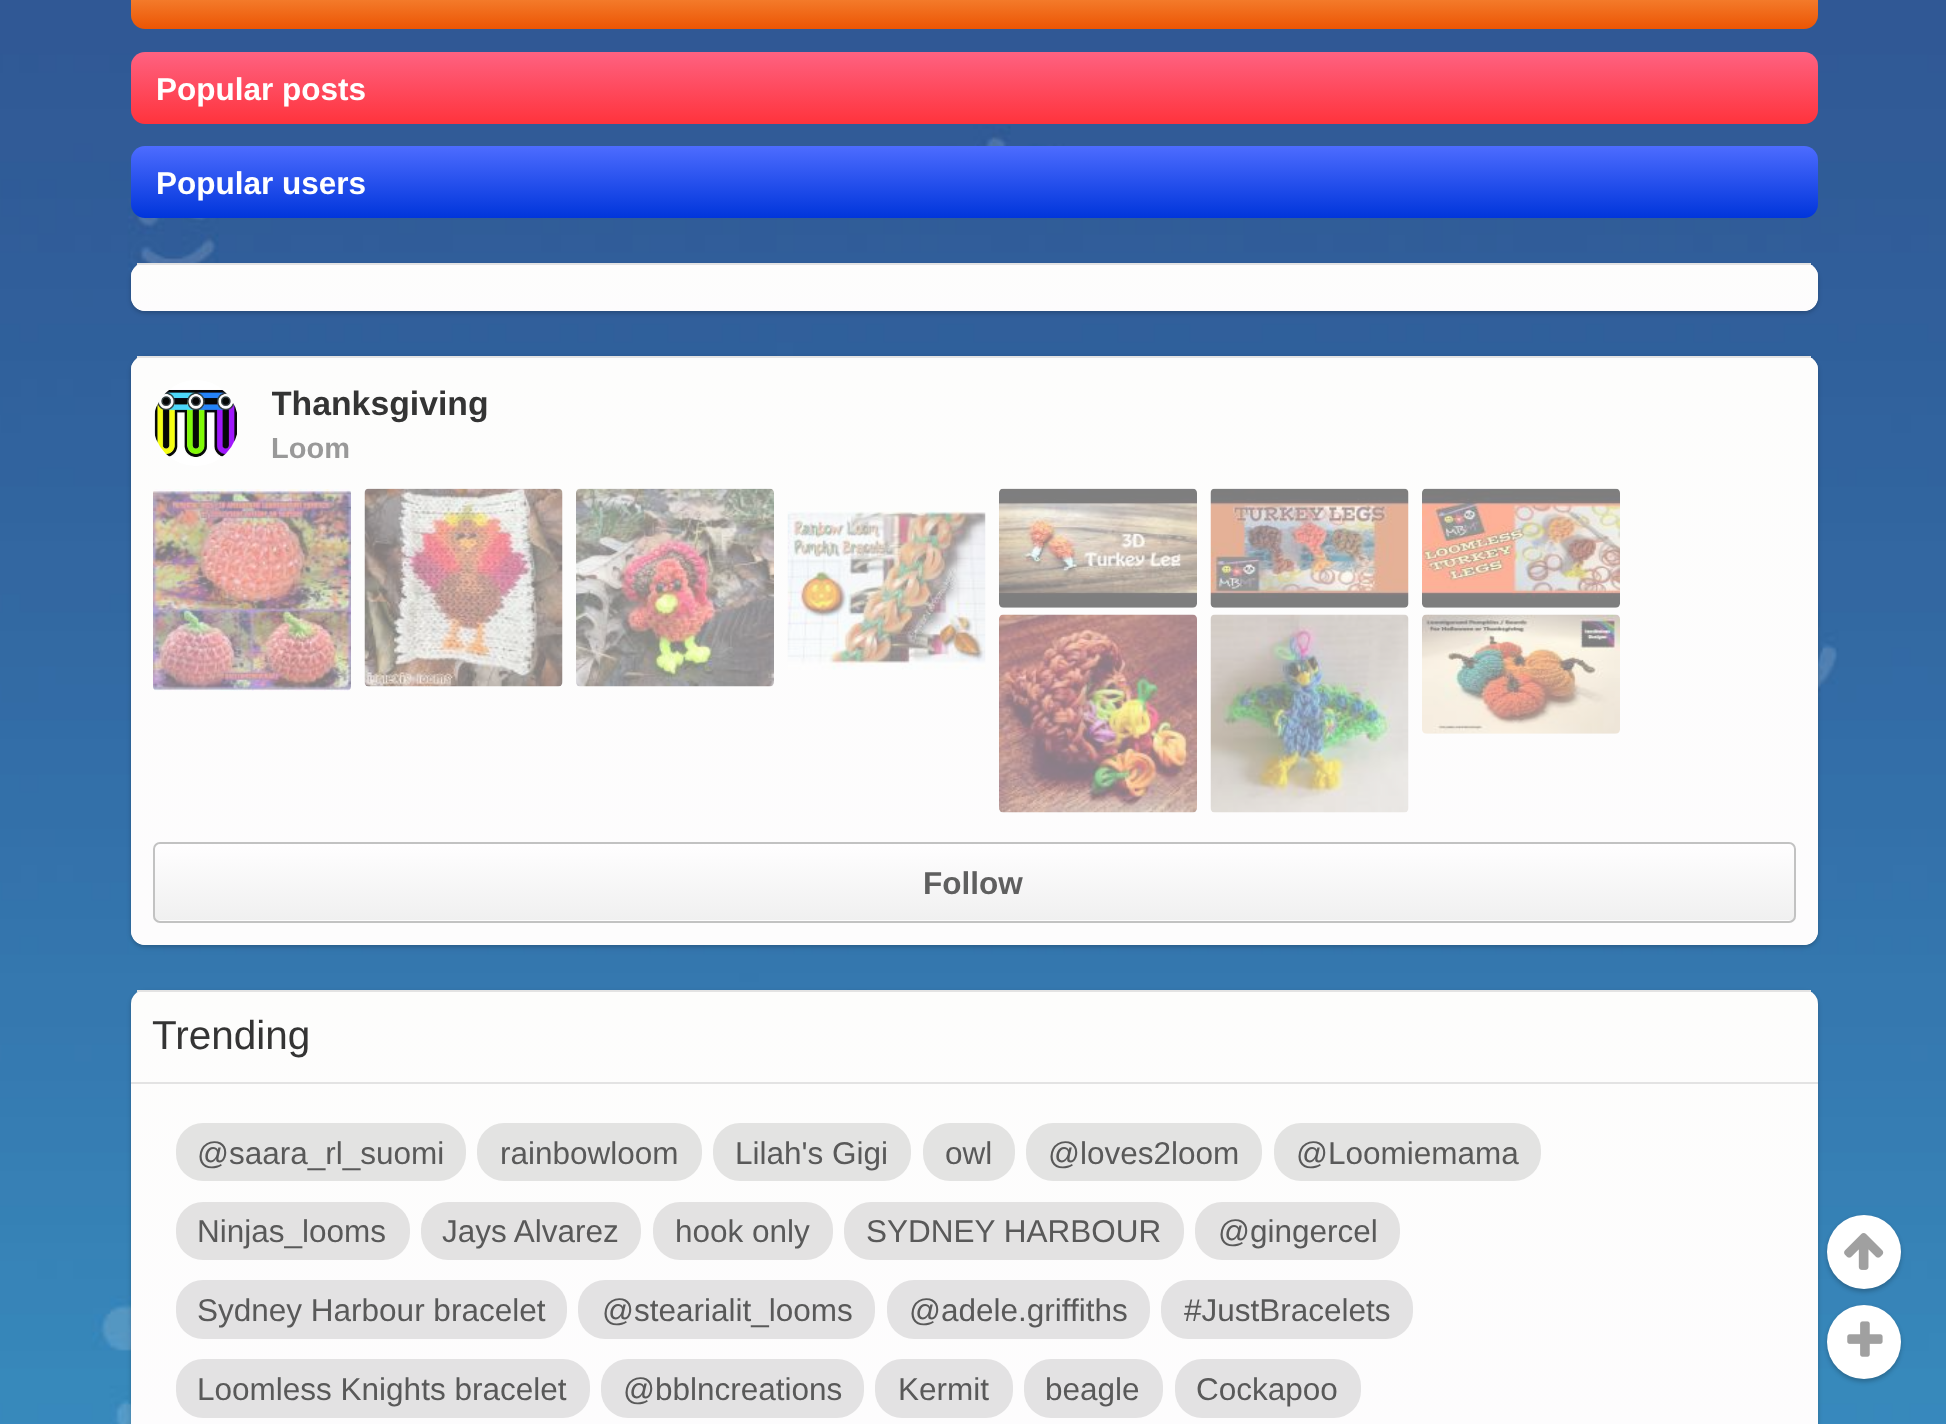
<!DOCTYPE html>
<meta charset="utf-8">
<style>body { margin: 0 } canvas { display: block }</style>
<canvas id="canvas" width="1946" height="1424"></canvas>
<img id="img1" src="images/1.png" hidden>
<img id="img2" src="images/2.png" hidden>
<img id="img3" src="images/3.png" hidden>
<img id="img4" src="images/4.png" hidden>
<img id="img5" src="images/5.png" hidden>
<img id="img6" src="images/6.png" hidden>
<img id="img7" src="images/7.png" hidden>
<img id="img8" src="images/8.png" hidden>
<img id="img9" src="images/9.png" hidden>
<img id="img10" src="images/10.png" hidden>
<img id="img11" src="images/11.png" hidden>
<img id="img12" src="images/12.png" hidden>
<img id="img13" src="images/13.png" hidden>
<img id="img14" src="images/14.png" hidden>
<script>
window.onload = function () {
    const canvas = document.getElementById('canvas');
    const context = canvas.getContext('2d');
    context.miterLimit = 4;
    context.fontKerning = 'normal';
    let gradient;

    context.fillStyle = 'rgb(255, 255, 255)';
    context.fillRect(0, 0, 1946, 1424);
    context.drawImage(document.getElementById('img1'), 0, 0, 1946, 1424);
    gradient = context.createLinearGradient(974, -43, 974, 29);
    gradient.addColorStop(0, 'rgb(254, 177, 98)');
    gradient.addColorStop(1, 'rgb(236, 85, 4)');
    context.fillStyle = gradient;
    context.beginPath();
    context.roundRect(131, -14, 1687, 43, 14);
    context.fill();
    gradient = context.createLinearGradient(974, 52, 974, 124);
    gradient.addColorStop(0, 'rgb(254, 98, 129)');
    gradient.addColorStop(1, 'rgb(255, 51, 60)');
    context.fillStyle = gradient;
    context.beginPath();
    context.roundRect(131, 52, 1687, 72, 14);
    context.fill();
    gradient = context.createLinearGradient(974, 146, 974, 218);
    gradient.addColorStop(0, 'rgb(77, 108, 255)');
    gradient.addColorStop(1, 'rgb(0, 53, 219)');
    context.fillStyle = gradient;
    context.beginPath();
    context.roundRect(131, 146, 1687, 72, 14);
    context.fill();
    context.fillStyle = 'rgba(0, 0, 0, 0.22)';
    context.filter = 'blur(2px)';
    context.beginPath();
    context.roundRect(131, 266, 1687, 47, 14);
    context.fill();
    context.filter = 'none';
    context.fillStyle = 'rgb(253, 252, 253)';
    context.beginPath();
    context.roundRect(131, 263, 1687, 48, 14);
    context.fill();
    context.save();
    context.beginPath();
    context.roundRect(131, 263, 1687, 48, 14);
    context.clip();
    gradient = context.createLinearGradient(974, 220, 974, 266);
    gradient.addColorStop(0, 'rgb(253, 253, 252)');
    gradient.addColorStop(1, 'rgb(253, 252, 253)');
    context.fillStyle = gradient;
    context.fillRect(131, 265, 1687, 1);
    gradient = context.createLinearGradient(974, 265, 974, 311);
    gradient.addColorStop(0, 'rgb(253, 253, 252)');
    gradient.addColorStop(1, 'rgb(253, 252, 253)');
    context.fillStyle = gradient;
    context.beginPath();
    context.roundRect(131, 266, 1687, 45, [0, 0, 14, 14]);
    context.fill();
    context.restore();
    context.fillStyle = 'rgb(227, 227, 227)';
    context.fillRect(137, 263, 1674, 2);
    context.fillStyle = 'rgba(0, 0, 0, 0.22)';
    context.filter = 'blur(2px)';
    context.beginPath();
    context.roundRect(131, 358, 1687, 589, 14);
    context.fill();
    context.filter = 'none';
    context.fillStyle = 'rgb(253, 252, 253)';
    context.beginPath();
    context.roundRect(131, 356, 1687, 589, 14);
    context.fill();
    context.save();
    context.beginPath();
    context.roundRect(131, 356, 1687, 589, 14);
    context.clip();
    gradient = context.createLinearGradient(974, 358, 974, 945);
    gradient.addColorStop(0, 'rgb(253, 253, 252)');
    gradient.addColorStop(1, 'rgb(253, 252, 253)');
    context.fillStyle = gradient;
    context.beginPath();
    context.roundRect(131, 358, 1687, 587, [0, 0, 14, 14]);
    context.fill();
    context.restore();
    context.fillStyle = 'rgb(227, 227, 227)';
    context.fillRect(137, 356, 1674, 2);
    context.fillStyle = 'rgb(255, 255, 255)';
    context.beginPath();
    context.arc(196, 423, 43, 0, 2 * Math.PI);
    context.fill();
    context.drawImage(document.getElementById('img2'), 154, 389, 83, 69);
    context.drawImage(document.getElementById('img3'), 153, 489, 198, 202);
    context.drawImage(document.getElementById('img4'), 364, 488, 199, 199);
    context.drawImage(document.getElementById('img5'), 576, 488, 198, 199);
    context.drawImage(document.getElementById('img6'), 787, 510, 199, 160);
    context.drawImage(document.getElementById('img7'), 999, 488, 198, 120);
    context.drawImage(document.getElementById('img8'), 1210, 488, 199, 120);
    context.drawImage(document.getElementById('img9'), 1422, 488, 198, 120);
    context.drawImage(document.getElementById('img10'), 999, 614, 198, 199);
    context.drawImage(document.getElementById('img11'), 1210, 614, 199, 199);
    context.drawImage(document.getElementById('img12'), 1422, 614, 198, 120);
    gradient = context.createLinearGradient(974, 844, 974, 920);
    gradient.addColorStop(0, 'rgb(255, 254, 255)');
    gradient.addColorStop(1, 'rgb(240, 240, 240)');
    context.fillStyle = gradient;
    context.beginPath();
    context.moveTo(153, 849);
    context.lineTo(153, 916);
    context.bezierCurveTo(153, 917, 153, 919, 154, 920);
    context.lineTo(1795, 920);
    context.bezierCurveTo(1797, 916, 1796, 908, 1796, 905);
    context.lineTo(1796, 848);
    context.lineTo(1794, 844);
    context.lineTo(155, 844);
    context.bezierCurveTo(154, 845, 153, 847, 153, 849);
    context.closePath();
    context.fill();
    context.beginPath();
    context.roundRect(154, 843, 1641, 79, 6);
    context.strokeStyle = 'rgb(194, 194, 194)';
    context.lineWidth = 2;
    context.stroke();
    context.fillStyle = 'rgba(0, 0, 0, 0.22)';
    context.filter = 'blur(2px)';
    context.beginPath();
    context.roundRect(131, 992, 1687, 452, 14);
    context.fill();
    context.filter = 'none';
    context.save();
    context.beginPath();
    context.roundRect(131, 990, 1687, 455, 14);
    context.clip();
    gradient = context.createLinearGradient(974, 992, 974, 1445);
    gradient.addColorStop(0, 'rgb(253, 253, 252)');
    gradient.addColorStop(1, 'rgb(253, 252, 253)');
    context.fillStyle = gradient;
    context.beginPath();
    context.moveTo(131, 992);
    context.lineTo(1818, 992);
    context.lineTo(1818, 1424);
    context.bezierCurveTo(1818, 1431.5, 1811.5, 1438, 1804, 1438);
    context.lineTo(145, 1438);
    context.bezierCurveTo(137.5, 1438, 131, 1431.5, 131, 1424);
    context.closePath();
    context.fill();
    context.restore();
    context.fillStyle = 'rgb(227, 227, 227)';
    context.fillRect(137, 990, 1674, 2);
    context.fillRect(131, 1082, 1687, 2);
    context.fillStyle = 'rgb(227, 227, 226)';
    context.beginPath();
    context.roundRect(176, 1123, 290, 58, 27);
    context.fill();
    context.beginPath();
    context.roundRect(477, 1123, 225, 58, 27);
    context.fill();
    context.beginPath();
    context.roundRect(713, 1123, 198, 58, 27);
    context.fill();
    context.beginPath();
    context.roundRect(923, 1123, 92, 58, 27);
    context.fill();
    context.beginPath();
    context.roundRect(1026, 1123, 236, 58, 27);
    context.fill();
    context.beginPath();
    context.roundRect(1274, 1123, 267, 58, 27);
    context.fill();
    context.fillStyle = 'rgb(227, 226, 226)';
    context.beginPath();
    context.roundRect(176, 1202, 234, 58, 27);
    context.fill();
    context.beginPath();
    context.roundRect(421, 1202, 220, 58, 27);
    context.fill();
    context.beginPath();
    context.roundRect(653, 1202, 180, 58, 27);
    context.fill();
    context.beginPath();
    context.roundRect(844, 1202, 340, 58, 27);
    context.fill();
    context.beginPath();
    context.roundRect(1195, 1202, 205, 58, 27);
    context.fill();
    context.fillStyle = 'rgb(227, 226, 227)';
    context.beginPath();
    context.roundRect(176, 1280, 391, 59, 27);
    context.fill();
    context.beginPath();
    context.roundRect(578, 1280, 297, 59, 27);
    context.fill();
    context.beginPath();
    context.roundRect(887, 1280, 263, 59, 27);
    context.fill();
    context.beginPath();
    context.roundRect(1161, 1280, 252, 59, 27);
    context.fill();
    context.beginPath();
    context.roundRect(176, 1359, 414, 59, 27);
    context.fill();
    context.beginPath();
    context.roundRect(601, 1359, 263, 59, 27);
    context.fill();
    context.beginPath();
    context.roundRect(875, 1359, 138, 59, 27);
    context.fill();
    context.beginPath();
    context.roundRect(1024, 1359, 139, 59, 27);
    context.fill();
    context.beginPath();
    context.roundRect(1175, 1359, 186, 59, 27);
    context.fill();
    context.fillStyle = 'rgba(0, 0, 0, 0.22)';
    context.filter = 'blur(2px)';
    context.beginPath();
    context.roundRect(1827, 1217, 74, 75, 37);
    context.fill();
    context.filter = 'none';
    context.fillStyle = 'rgb(255, 255, 255)';
    context.beginPath();
    context.arc(1864, 1252, 37, 0, 2 * Math.PI);
    context.fill();
    context.drawImage(document.getElementById('img13'), 1844, 1233, 40, 37);
    context.fillStyle = 'rgba(0, 0, 0, 0.22)';
    context.filter = 'blur(2px)';
    context.beginPath();
    context.roundRect(1827, 1307, 74, 75, 37);
    context.fill();
    context.filter = 'none';
    context.fillStyle = 'rgb(255, 255, 255)';
    context.beginPath();
    context.arc(1864, 1342, 37, 0, 2 * Math.PI);
    context.fill();
    context.drawImage(document.getElementById('img14'), 1847, 1321, 36, 36);
    context.font = 'bold 31.5px Liberation Sans';
    context.fillText('Popular posts', 156, 100);
    context.fillText('Popular users', 156, 194);
    context.save();
    context.beginPath();
    context.rect(272, 380, 1530, 43);
    context.clip();
    context.font = 'bold 33.75px Liberation Sans';
    context.fillStyle = 'rgb(52, 52, 52)';
    context.fillText('Thanksgiving', 271, 415);
    context.restore();
    context.font = 'bold 29px Liberation Sans';
    context.fillStyle = 'rgb(153, 153, 153)';
    context.fillText('Loom', 271, 458);
    context.font = 'bold 31.5px Liberation Sans';
    context.fillStyle = 'rgb(95, 95, 95)';
    context.fillText('Follow', 923, 894);
    context.font = '40.5px Liberation Sans';
    context.fillStyle = 'rgb(52, 52, 52)';
    context.fillText('Trending', 152, 1049);
    context.font = '31.5px Liberation Sans';
    context.fillStyle = 'rgb(89, 89, 89)';
    context.fillText('@saara_rl_suomi', 197, 1164);
    context.fillText('rainbowloom', 500, 1164);
    context.fillText('Lilah\'s Gigi', 735, 1164);
    context.fillText('owl', 945, 1164);
    context.fillText('@loves2loom', 1048, 1164);
    context.fillText('@Loomiemama', 1296, 1164);
    context.fillText('Ninjas_looms', 197, 1242);
    context.fillText('Jays Alvarez', 442, 1242);
    context.fillText('hook only', 675, 1242);
    context.fillText('SYDNEY HARBOUR', 866, 1242);
    context.fillText('@gingercel', 1218, 1242);
    context.fillText('Sydney Harbour bracelet', 197, 1321);
    context.fillText('@stearialit_looms', 602, 1321);
    context.fillText('@adele.griffiths', 909, 1321);
    context.fillText('#JustBracelets', 1184, 1321);
    context.fillText('Loomless Knights bracelet', 197, 1400);
    context.fillText('@bblncreations', 623, 1400);
    context.fillText('Kermit', 898, 1400);
    context.fillText('beagle', 1045, 1400);
    context.fillText('Cockapoo', 1196, 1400);
};
</script>
